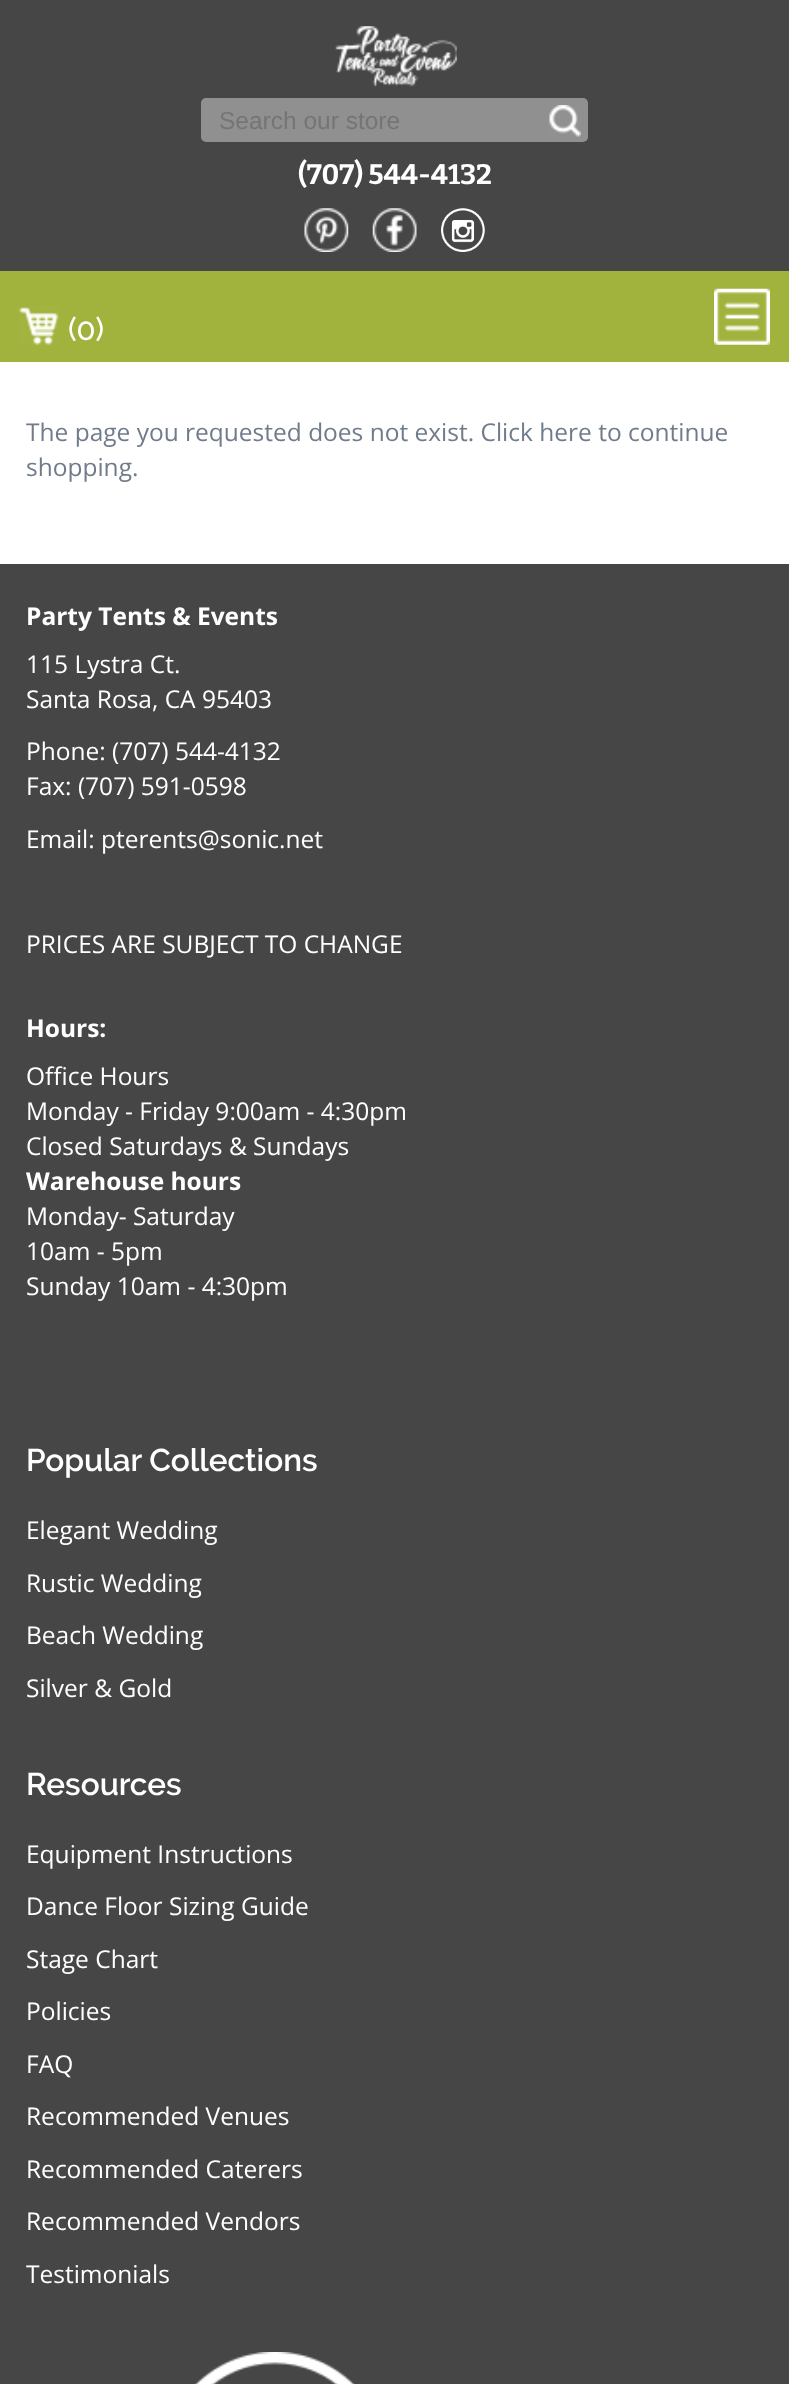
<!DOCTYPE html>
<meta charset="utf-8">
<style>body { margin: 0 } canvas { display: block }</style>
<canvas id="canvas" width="789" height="2384"></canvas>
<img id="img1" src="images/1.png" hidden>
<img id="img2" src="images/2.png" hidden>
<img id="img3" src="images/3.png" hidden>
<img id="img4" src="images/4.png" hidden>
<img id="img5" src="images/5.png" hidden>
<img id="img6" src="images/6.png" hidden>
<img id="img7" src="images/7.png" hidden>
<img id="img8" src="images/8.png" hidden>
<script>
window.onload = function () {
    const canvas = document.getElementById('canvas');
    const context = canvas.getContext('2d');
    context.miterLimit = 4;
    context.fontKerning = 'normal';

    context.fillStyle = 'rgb(255, 255, 255)';
    context.fillRect(0, 0, 789, 2384);
    context.fillStyle = 'rgb(70, 70, 70)';
    context.fillRect(0, 0, 789, 271);
    context.drawImage(document.getElementById('img1'), 335, 26, 122, 61);
    context.fillStyle = 'rgb(144, 144, 144)';
    context.beginPath();
    context.roundRect(201, 98, 387, 44, 5);
    context.fill();
    context.drawImage(document.getElementById('img2'), 549, 105, 32, 32);
    context.drawImage(document.getElementById('img3'), 304, 208, 45, 44);
    context.drawImage(document.getElementById('img4'), 372, 208, 45, 44);
    context.drawImage(document.getElementById('img5'), 441, 208, 44, 44);
    context.fillStyle = 'rgb(162, 179, 61)';
    context.fillRect(0, 271, 789, 91);
    context.drawImage(document.getElementById('img6'), 714, 288, 56, 57);
    context.drawImage(document.getElementById('img7'), 18, 306, 41, 40);
    context.fillStyle = 'rgb(70, 70, 70)';
    context.fillRect(0, 564, 789, 1820);
    context.drawImage(document.getElementById('img8'), 194, 2352, 162, 32);
    context.font = '24.5px Liberation Sans';
    context.fillStyle = 'rgb(117, 117, 117)';
    context.fillText('Search our store', 219, 129);
    context.font = 'bold 28px Bitter';
    context.fillStyle = 'rgb(255, 255, 255)';
    context.fillText('(707) 544-4132', 298, 184);
    context.font = '500 31.5px Raleway';
    context.fillText('(0)', 68, 340);
    context.font = '24.5px Open Sans';
    context.fillStyle = 'rgb(112, 124, 139)';
    context.fillText('The page you requested does not exist. Click here to continue', 26, 441);
    context.fillText('shopping.', 26, 476);
    context.font = 'bold 24.5px Open Sans';
    context.fillStyle = 'rgb(255, 255, 255)';
    context.fillText('Party Tents & Events', 26, 625);
    context.font = '24.5px Open Sans';
    context.fillText('115 Lystra Ct.', 26, 673);
    context.fillText('Santa Rosa, CA 95403', 26, 708);
    context.fillText('Phone: (707) 544-4132', 26, 760);
    context.fillText('Fax: (707) 591-0598', 26, 795);
    context.fillText('Email: pterents@sonic.net', 26, 848);
    context.fillText('PRICES ARE SUBJECT TO CHANGE', 26, 953);
    context.font = 'bold 24.5px Open Sans';
    context.fillText('Hours:', 26, 1037);
    context.font = '24.5px Open Sans';
    context.fillText('Office Hours', 26, 1085);
    context.fillText('Monday - Friday 9:00am - 4:30pm', 26, 1120);
    context.fillText('Closed Saturdays & Sundays', 26, 1155);
    context.font = 'bold 24.5px Open Sans';
    context.fillText('Warehouse hours', 26, 1190);
    context.font = '24.5px Open Sans';
    context.fillText('Monday- Saturday', 26, 1225);
    context.fillText('10am - 5pm', 26, 1260);
    context.fillText('Sunday 10am - 4:30pm', 26, 1295);
    context.font = '600 31.5px Raleway';
    context.fillText('Popular Collections', 26, 1471);
    context.font = '24.5px Open Sans';
    context.fillText('Elegant Wedding', 26, 1539);
    context.fillText('Rustic Wedding', 26, 1592);
    context.fillText('Beach Wedding', 26, 1644);
    context.fillText('Silver & Gold', 26, 1697);
    context.font = '600 31.5px Raleway';
    context.fillText('Resources', 26, 1795);
    context.font = '24.5px Open Sans';
    context.fillText('Equipment Instructions', 26, 1863);
    context.fillText('Dance Floor Sizing Guide', 26, 1915);
    context.fillText('Stage Chart', 26, 1968);
    context.fillText('Policies', 26, 2020);
    context.fillText('FAQ', 26, 2073);
    context.fillText('Recommended Venues', 26, 2125);
    context.fillText('Recommended Caterers', 26, 2178);
    context.fillText('Recommended Vendors', 26, 2230);
    context.fillText('Testimonials', 26, 2283);
};
</script>
